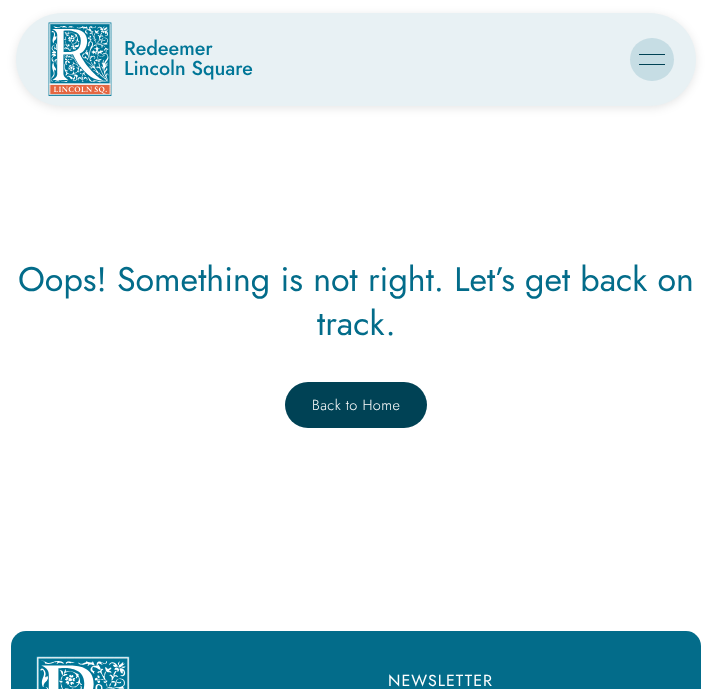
<!DOCTYPE html>
<meta charset="utf-8">
<style>body { margin: 0 } canvas { display: block }</style>
<canvas id="canvas" width="712" height="689"></canvas>
<img id="img1" src="images/1.png" hidden>
<img id="img2" src="images/2.png" hidden>
<img id="img3" src="images/3.png" hidden>
<script>
window.onload = function () {
    const canvas = document.getElementById('canvas');
    const context = canvas.getContext('2d');
    context.miterLimit = 4;
    context.fontKerning = 'normal';

    context.fillStyle = 'rgb(255, 255, 255)';
    context.fillRect(0, 0, 712, 689);
    context.fillStyle = 'rgba(0, 0, 0, 0.1)';
    context.filter = 'blur(5px)';
    context.beginPath();
    context.roundRect(16, 15, 680, 93, 46.5);
    context.fill();
    context.filter = 'none';
    context.fillStyle = 'rgb(232, 241, 244)';
    context.beginPath();
    context.roundRect(16, 13, 680, 93, 46.5);
    context.fill();
    context.drawImage(document.getElementById('img1'), 48, 22, 64, 74);
    context.drawImage(document.getElementById('img2'), 125, 39, 128, 41);
    context.fillStyle = 'rgb(198, 221, 228)';
    context.beginPath();
    context.roundRect(630, 38, 44, 43, 21.5);
    context.fill();
    context.fillStyle = 'rgb(0, 66, 85)';
    context.fillRect(639, 54, 26, 1);
    context.fillRect(639, 64, 26, 1);
    context.beginPath();
    context.roundRect(285, 382, 142, 46, 23);
    context.fill();
    context.fillStyle = 'rgb(3, 108, 138)';
    context.beginPath();
    context.roundRect(11, 631, 690, 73, 15);
    context.fill();
    context.drawImage(document.getElementById('img3'), 36, 656, 94, 33);
    context.font = '34px Jost';
    context.fillText('Oops! Something is not right. Let’s get back on', 18, 291);
    context.fillText('track.', 317, 335);
    context.letterSpacing = '0.4px';
    context.font = '300 14.5px Jost';
    context.fillStyle = 'rgb(255, 255, 255)';
    context.fillText('Back to Home', 312, 410);
    context.letterSpacing = '1px';
    context.font = '16px Jost';
    context.fillText('NEWSLETTER', 388, 686);
};
</script>
